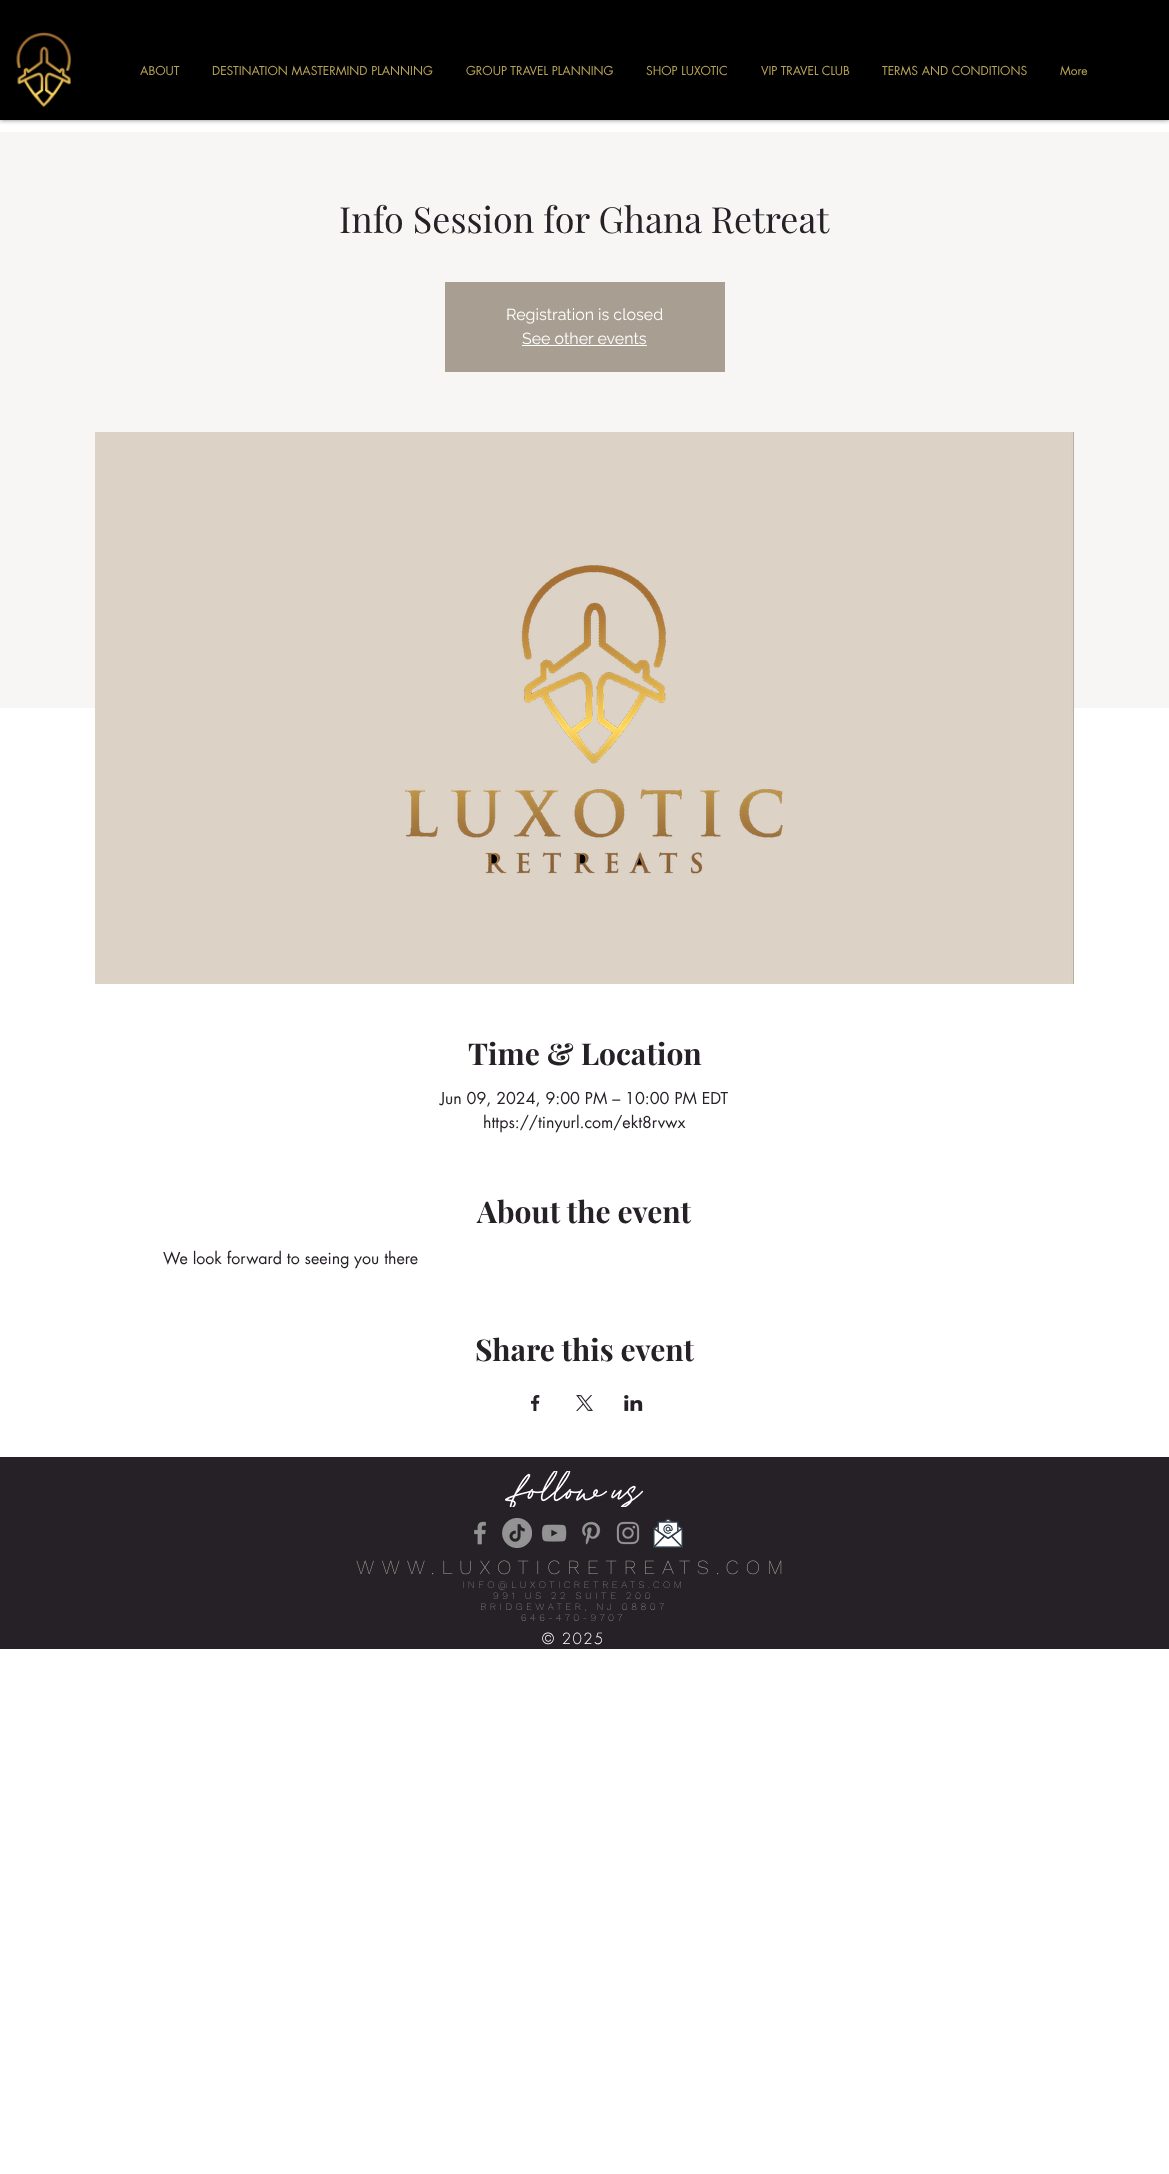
<!DOCTYPE html>
<meta charset="utf-8">
<style>body { margin: 0 } canvas { display: block }</style>
<canvas id="canvas" width="1169" height="2174"></canvas>
<img id="img1" src="images/1.png" hidden>
<img id="img2" src="images/2.png" hidden>
<img id="img3" src="images/3.png" hidden>
<img id="img4" src="images/4.png" hidden>
<img id="img5" src="images/5.png" hidden>
<img id="img6" src="images/6.png" hidden>
<img id="img7" src="images/7.png" hidden>
<img id="img8" src="images/8.png" hidden>
<img id="img9" src="images/9.png" hidden>
<img id="img10" src="images/10.png" hidden>
<img id="img11" src="images/11.png" hidden>
<img id="img12" src="images/12.png" hidden>
<script>
window.onload = function () {
    const canvas = document.getElementById('canvas');
    const context = canvas.getContext('2d');
    context.miterLimit = 4;
    context.fontKerning = 'normal';

    context.fillStyle = 'rgb(255, 255, 255)';
    context.fillRect(0, 0, 1169, 2174);
    context.fillStyle = 'rgba(0, 0, 0, 0.5)';
    context.filter = 'blur(2.5px)';
    context.beginPath();
    context.rect(0, 0, 1169, 120);
    context.fill();
    context.filter = 'none';
    context.fillStyle = 'rgb(0, 0, 0)';
    context.fillRect(0, 0, 1169, 120);
    context.drawImage(document.getElementById('img1'), 16, 32, 56, 75);
    context.fillStyle = 'rgb(247, 246, 245)';
    context.fillRect(0, 132, 1169, 576);
    context.fillStyle = 'rgb(168, 158, 145)';
    context.fillRect(445, 282, 280, 90);
    context.fillStyle = 'rgb(255, 255, 255)';
    context.fillRect(522, 345, 125, 1);
    context.fillStyle = 'rgb(221, 210, 198)';
    context.fillRect(95, 432, 979, 552);
    context.drawImage(document.getElementById('img2'), 405, 432, 669, 552);
    context.drawImage(document.getElementById('img3'), 531, 1395, 9, 16);
    context.drawImage(document.getElementById('img4'), 576, 1395, 17, 16);
    context.drawImage(document.getElementById('img5'), 624, 1395, 19, 16);
    context.fillStyle = 'rgb(38, 32, 39)';
    context.fillRect(0, 1457, 1169, 192);
    context.drawImage(document.getElementById('img6'), 505, 1471, 138, 36);
    context.drawImage(document.getElementById('img7'), 474, 1521, 12, 24);
    context.drawImage(document.getElementById('img8'), 502, 1518, 30, 30);
    context.drawImage(document.getElementById('img9'), 541, 1524, 26, 18);
    context.drawImage(document.getElementById('img10'), 582, 1521, 19, 24);
    context.drawImage(document.getElementById('img11'), 616, 1521, 24, 24);
    context.drawImage(document.getElementById('img12'), 653, 1518, 30, 30);
    context.font = '12px futura';
    context.fillStyle = 'rgb(183, 163, 84)';
    context.fillText('ABOUT', 140, 75);
    context.fillText('DESTINATION MASTERMIND PLANNING', 212, 75);
    context.fillText('GROUP TRAVEL PLANNING', 466, 75);
    context.fillText('SHOP LUXOTIC', 646, 75);
    context.fillText('VIP TRAVEL CLUB', 761, 75);
    context.fillText('TERMS AND CONDITIONS', 882, 75);
    context.fillText('More', 1060, 75);
    context.font = '36px Playfair Display';
    context.fillStyle = 'rgb(38, 32, 39)';
    context.fillText('Info Session for Ghana Retreat', 339, 233);
    context.font = '16px Raleway';
    context.fillStyle = 'rgb(255, 255, 255)';
    context.fillText('Registration is closed', 506, 320);
    context.fillText('See other events', 522, 344);
    context.font = 'bold 30px Playfair Display';
    context.fillStyle = 'rgb(38, 32, 39)';
    context.fillText('Time & Location', 468, 1065);
    context.font = '16px futura';
    context.fillText('Jun 09, 2024, 9:00 PM – 10:00 PM EDT', 440, 1104);
    context.fillText('https://tinyurl.com/ekt8rvwx', 483, 1128);
    context.font = 'bold 30px Playfair Display';
    context.fillText('About the event', 477, 1223);
    context.font = '16px futura';
    context.fillText('We look forward to seeing you there', 163, 1264);
    context.font = 'bold 30px Playfair Display';
    context.fillText('Share this event', 475, 1361);
    context.letterSpacing = '7px';
    context.font = '200 20px Work Sans';
    context.fillStyle = 'rgb(168, 158, 145)';
    context.fillText('WWW.LUXOTICRETREATS.COM', 356, 1574);
    context.letterSpacing = '3.5px';
    context.font = '200 10px Work Sans';
    context.fillText('INFO@LUXOTICRETREATS.COM', 462, 1588);
    context.fillText('991 US 22 SUITE 200', 493, 1599);
    context.fillText('BRIDGEWATER, NJ 08807', 480, 1610);
    context.fillText('646-470-9707', 521, 1621);
    context.letterSpacing = '1.5px';
    context.font = '300 15px futura';
    context.fillStyle = 'rgb(255, 255, 255)';
    context.fillText('© 2025', 542, 1644);
};
</script>
